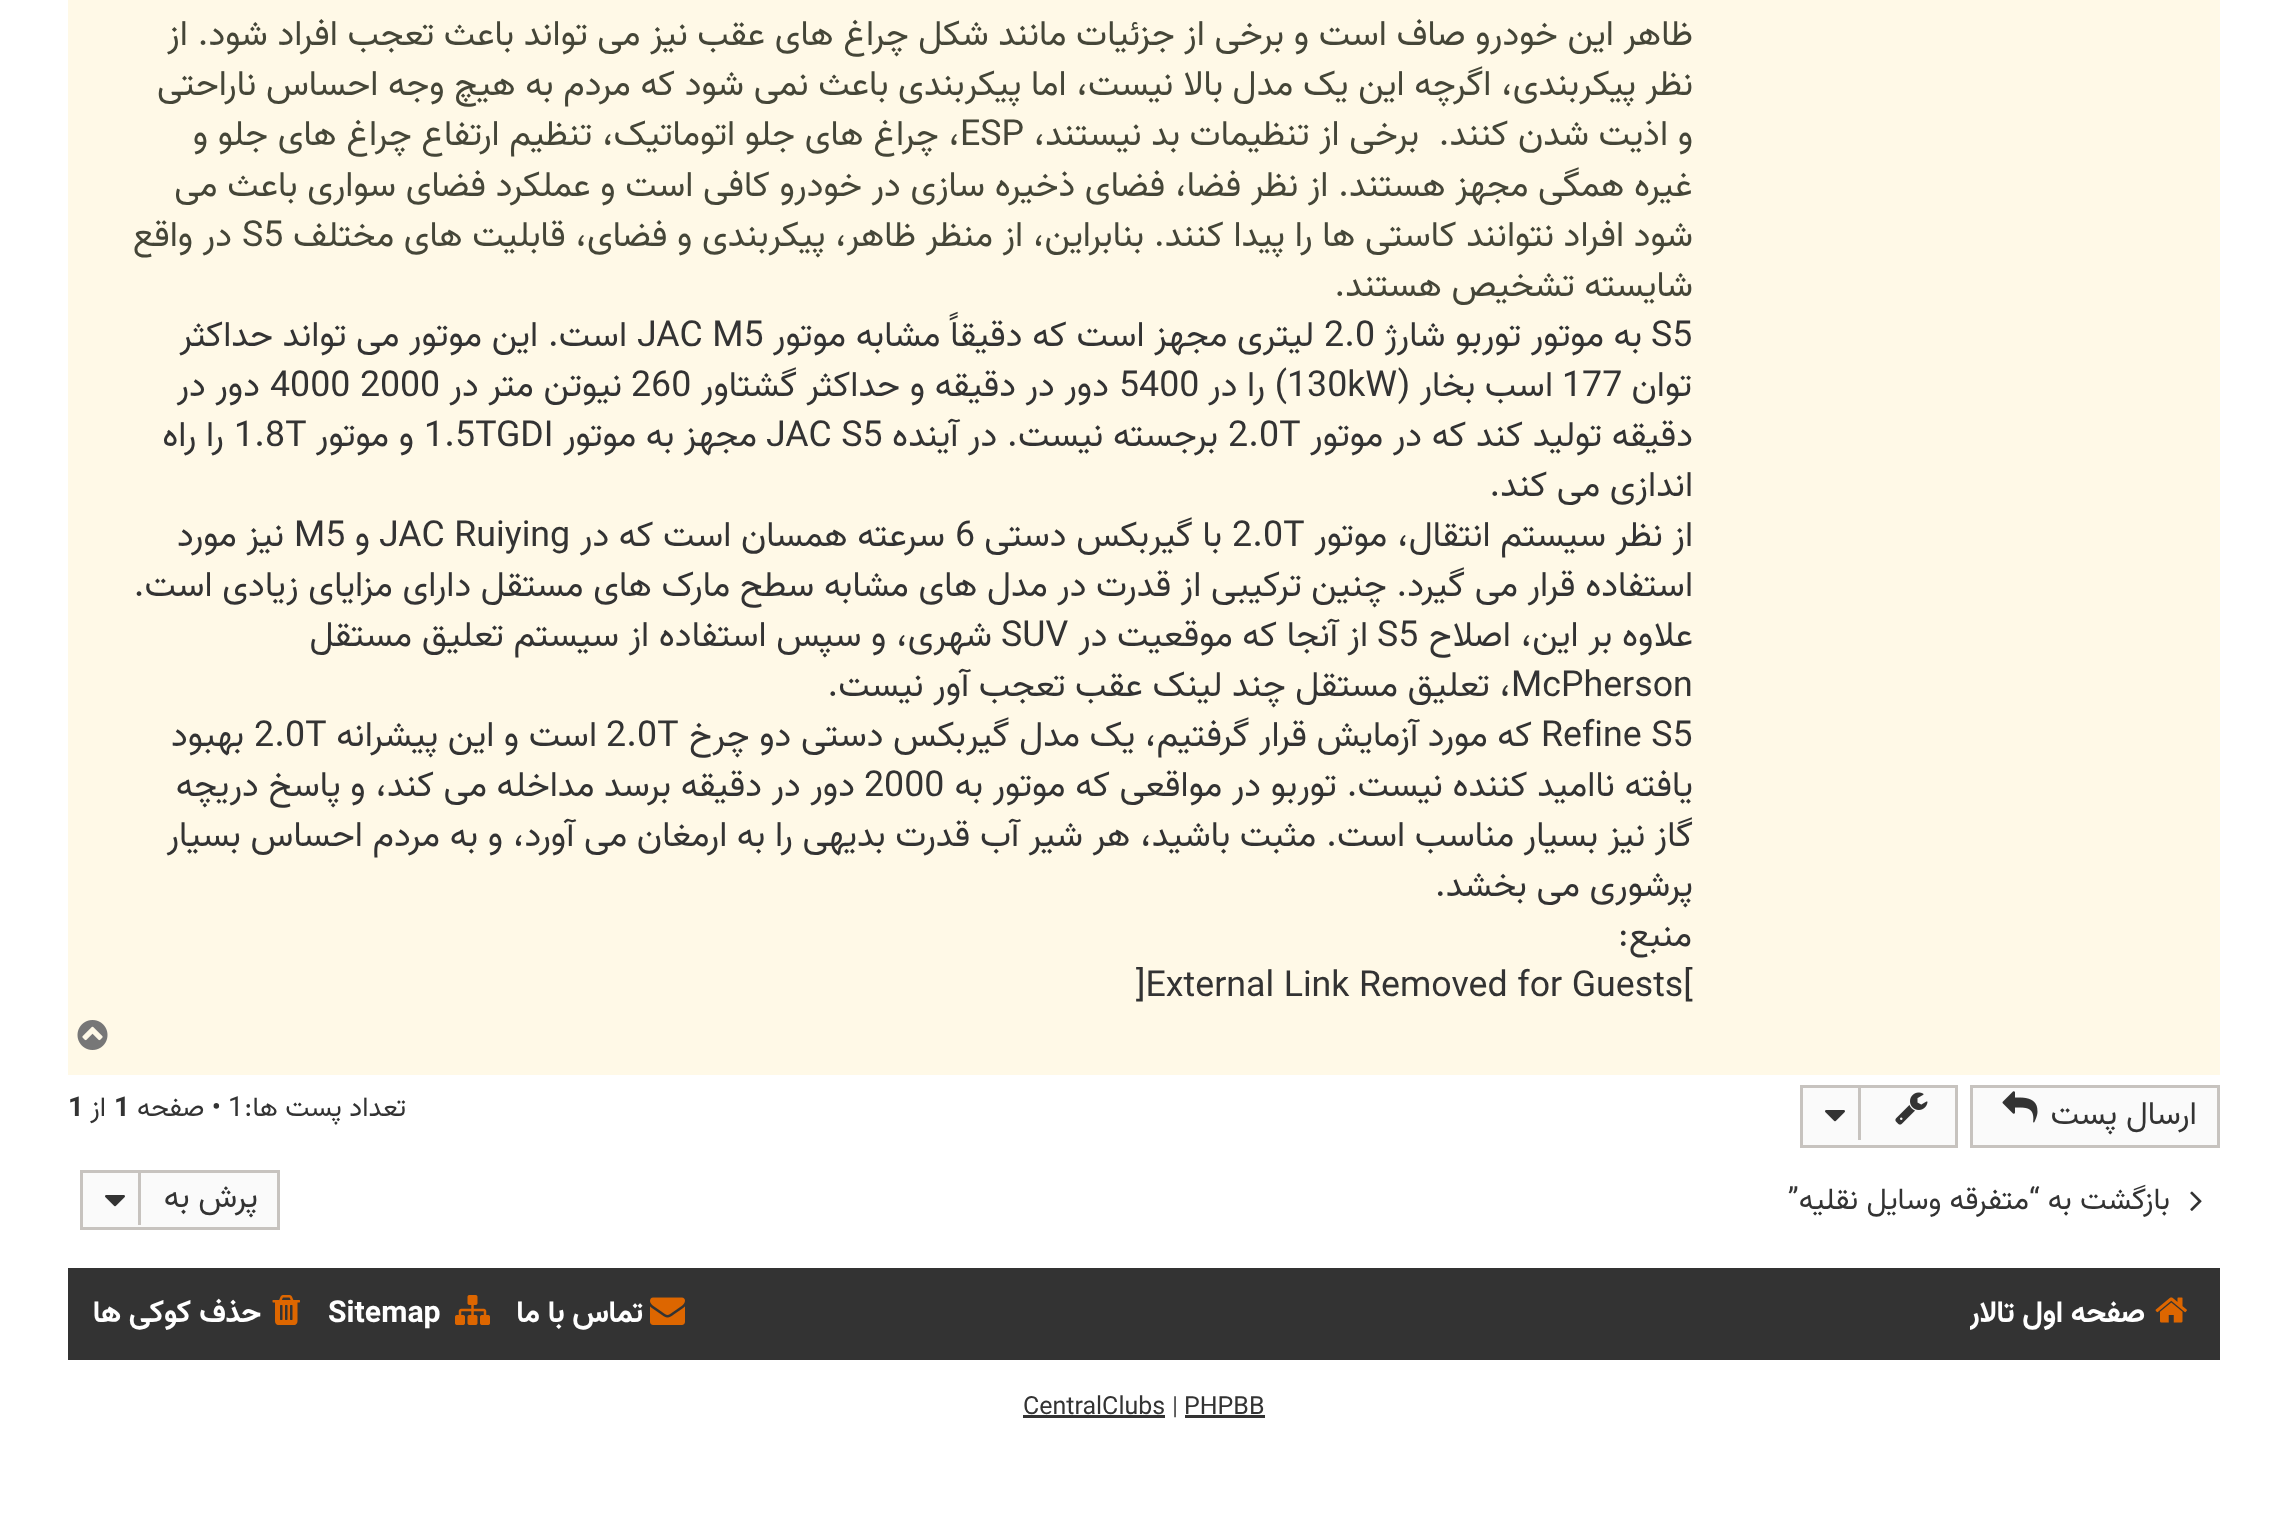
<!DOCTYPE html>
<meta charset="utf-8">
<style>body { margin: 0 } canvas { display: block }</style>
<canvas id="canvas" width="2287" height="1516"></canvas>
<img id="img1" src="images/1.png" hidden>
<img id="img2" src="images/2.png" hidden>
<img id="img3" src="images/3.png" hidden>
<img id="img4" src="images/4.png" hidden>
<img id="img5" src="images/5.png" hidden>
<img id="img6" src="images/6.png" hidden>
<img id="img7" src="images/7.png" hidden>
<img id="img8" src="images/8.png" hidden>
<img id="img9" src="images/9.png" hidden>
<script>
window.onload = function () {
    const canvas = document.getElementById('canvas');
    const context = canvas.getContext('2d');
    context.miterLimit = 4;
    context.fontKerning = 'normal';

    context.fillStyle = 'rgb(255, 255, 255)';
    context.fillRect(0, 0, 2287, 1516);
    context.fillStyle = 'rgb(255, 249, 231)';
    context.fillRect(68, 0, 2152, 1075);
    context.drawImage(document.getElementById('img1'), 77, 1020, 31, 30);
    context.fillStyle = 'rgb(250, 250, 250)';
    context.beginPath();
    context.rect(1971.5, 1086.5, 247, 60);
    context.fill();
    context.strokeStyle = 'rgb(199, 195, 191)';
    context.lineWidth = 3;
    context.stroke();
    context.drawImage(document.getElementById('img2'), 2002, 1091, 36, 32);
    context.beginPath();
    context.rect(1801.5, 1086.5, 155, 60);
    context.fill();
    context.stroke();
    context.drawImage(document.getElementById('img3'), 1895, 1092, 33, 33);
    context.fillStyle = 'rgb(199, 195, 191)';
    context.fillRect(1858, 1088, 3, 52);
    context.drawImage(document.getElementById('img4'), 1825, 1110, 20, 12);
    context.drawImage(document.getElementById('img5'), 2190, 1191, 12, 20);
    context.fillStyle = 'rgb(250, 250, 250)';
    context.beginPath();
    context.rect(81.5, 1171.5, 197, 57);
    context.fill();
    context.stroke();
    context.fillStyle = 'rgb(199, 195, 191)';
    context.fillRect(138, 1173, 3, 52);
    context.drawImage(document.getElementById('img4'), 105, 1195, 20, 12);
    context.fillStyle = 'rgb(51, 51, 51)';
    context.fillRect(68, 1268, 2152, 92);
    context.drawImage(document.getElementById('img6'), 2155, 1297, 32, 26);
    context.drawImage(document.getElementById('img7'), 650, 1297, 35, 28);
    context.drawImage(document.getElementById('img8'), 455, 1295, 35, 30);
    context.drawImage(document.getElementById('img9'), 272, 1295, 28, 30);
    context.fillRect(1185, 1415, 80, 3);
    context.fillRect(1023, 1415, 142, 3);
    context.direction = 'rtl';
    context.font = '35.75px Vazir';
    context.fillStyle = 'rgb(69, 70, 56)';
    context.fillText('ظاهر این خودرو صاف است و برخی از جزئیات مانند شکل چراغ های عقب نیز می تواند باعث تعجب افراد شود. از', 1693, 45);
    context.fillText('نظر پیکربندی، اگرچه این یک مدل بالا نیست، اما پیکربندی باعث نمی شود که مردم به هیچ وجه احساس ناراحتی', 1693, 95);
    context.fillText('و اذیت شدن کنند.', 1693, 145);
    context.fillText('برخی از تنظیمات بد نیستند،', 1419, 145);
    context.direction = 'ltr';
    context.fillText('ESP', 960, 145);
    context.direction = 'rtl';
    context.fillText('، چراغ های جلو اتوماتیک، تنظیم ارتفاع چراغ های جلو و', 960, 145);
    context.fillText('غیره همگی مجهز هستند. از نظر فضا، فضای ذخیره سازی در خودرو کافی است و عملکرد فضای سواری باعث می', 1693, 196);
    context.fillText('شود افراد نتوانند کاستی ها را پیدا کنند. بنابراین، از منظر ظاهر، پیکربندی و فضای، قابلیت های مختلف', 1693, 246);
    context.direction = 'ltr';
    context.fillText('S5', 242, 246);
    context.direction = 'rtl';
    context.fillText('در واقع', 232, 246);
    context.fillText('شایسته تشخیص هستند.', 1693, 296);
    context.direction = 'ltr';
    context.fillStyle = 'rgb(51, 51, 51)';
    context.fillText('S5', 1651, 346);
    context.direction = 'rtl';
    context.fillText('به موتور توربو شارژ', 1642, 346);
    context.direction = 'ltr';
    context.fillText('2.0', 1324, 346);
    context.direction = 'rtl';
    context.fillText('لیتری مجهز است که دقیقاً مشابه موتور', 1314, 346);
    context.direction = 'ltr';
    context.fillText('JAC M5', 637, 346);
    context.direction = 'rtl';
    context.fillText('است. این موتور می تواند حداکثر', 627, 346);
    context.fillText('توان', 1692, 396);
    context.direction = 'ltr';
    context.fillText('177', 1562, 396);
    context.direction = 'rtl';
    context.fillText('اسب بخار (', 1553, 396);
    context.direction = 'ltr';
    context.fillText('130kW', 1287, 396);
    context.direction = 'rtl';
    context.fillText(') را در', 1287, 396);
    context.direction = 'ltr';
    context.fillText('5400', 1119, 396);
    context.direction = 'rtl';
    context.fillText('دور در دقیقه و حداکثر گشتاور', 1109, 396);
    context.direction = 'ltr';
    context.fillText('260', 631, 396);
    context.direction = 'rtl';
    context.fillText('نیوتن متر در', 622, 396);
    context.direction = 'ltr';
    context.fillText('4000 2000', 270, 396);
    context.direction = 'rtl';
    context.fillText('دور در', 260, 396);
    context.fillText('دقیقه تولید کند که در موتور', 1693, 446);
    context.direction = 'ltr';
    context.fillText('2.0T', 1228, 446);
    context.direction = 'rtl';
    context.fillText('برجسته نیست. در آینده', 1218, 446);
    context.direction = 'ltr';
    context.fillText('JAC S5', 766, 446);
    context.direction = 'rtl';
    context.fillText('مجهز به موتور', 757, 446);
    context.direction = 'ltr';
    context.fillText('1.5TGDI', 424, 446);
    context.direction = 'rtl';
    context.fillText('و موتور', 414, 446);
    context.direction = 'ltr';
    context.fillText('1.8T', 234, 446);
    context.direction = 'rtl';
    context.fillText('را راه', 224, 446);
    context.fillText('اندازی می کند.', 1693, 496);
    context.fillText('از نظر سیستم انتقال، موتور', 1693, 546);
    context.direction = 'ltr';
    context.fillText('2.0T', 1232, 546);
    context.direction = 'rtl';
    context.fillText('با گیربکس دستی', 1222, 546);
    context.direction = 'ltr';
    context.fillText('6', 955, 546);
    context.direction = 'rtl';
    context.fillText('سرعته همسان است که در', 945, 546);
    context.direction = 'ltr';
    context.fillText('JAC Ruiying', 379, 546);
    context.direction = 'rtl';
    context.fillText('و', 370, 546);
    context.direction = 'ltr';
    context.fillText('M5', 294, 546);
    context.direction = 'rtl';
    context.fillText('نیز مورد', 284, 546);
    context.fillText('استفاده قرار می گیرد. چنین ترکیبی از قدرت در مدل های مشابه سطح مارک های مستقل دارای مزایای زیادی است.', 1693, 596);
    context.fillText('علاوه بر این، اصلاح', 1693, 646);
    context.direction = 'ltr';
    context.fillText('S5', 1377, 646);
    context.direction = 'rtl';
    context.fillText('از آنجا که موقعیت در', 1368, 646);
    context.direction = 'ltr';
    context.fillText('SUV', 1001, 646);
    context.direction = 'rtl';
    context.fillText('شهری، و سپس استفاده از سیستم تعلیق مستقل', 992, 646);
    context.direction = 'ltr';
    context.fillText('McPherson', 1511, 696);
    context.direction = 'rtl';
    context.fillText('، تعلیق مستقل چند لینک عقب تعجب آور نیست.', 1511, 696);
    context.direction = 'ltr';
    context.fillText('Refine S5', 1541, 746);
    context.direction = 'rtl';
    context.fillText('که مورد آزمایش قرار گرفتیم، یک مدل گیربکس دستی دو چرخ', 1532, 746);
    context.direction = 'ltr';
    context.fillText('2.0T', 606, 746);
    context.direction = 'rtl';
    context.fillText('است و این پیشرانه', 597, 746);
    context.direction = 'ltr';
    context.fillText('2.0T', 254, 746);
    context.direction = 'rtl';
    context.fillText('بهبود', 244, 746);
    context.fillText('یافته ناامید کننده نیست. توربو در مواقعی که موتور به', 1693, 796);
    context.direction = 'ltr';
    context.fillText('2000', 864, 796);
    context.direction = 'rtl';
    context.fillText('دور در دقیقه برسد مداخله می کند، و پاسخ دریچه', 855, 796);
    context.fillText('گاز نیز بسیار مناسب است. مثبت باشید، هر شیر آب قدرت بدیهی را به ارمغان می آورد، و به مردم احساس بسیار', 1693, 846);
    context.fillText('پرشوری می بخشد.', 1693, 896);
    context.fillText('منبع:', 1692, 946);
    context.direction = 'ltr';
    context.fillText(']External Link Removed for Guests[', 1136, 996);
    context.direction = 'rtl';
    context.font = '32.5px Vazir';
    context.fillText('ارسال پست', 2197, 1124);
    context.font = '27.5px Vazir';
    context.fillText('تعداد پست ها:', 406, 1116);
    context.direction = 'ltr';
    context.fillText('1', 228, 1116);
    context.direction = 'rtl';
    context.fillText('• صفحه', 221, 1116);
    context.direction = 'ltr';
    context.font = 'bold 27.5px Vazir';
    context.fillText('1', 114, 1116);
    context.direction = 'rtl';
    context.font = '27.5px Vazir';
    context.fillText('از', 106, 1116);
    context.direction = 'ltr';
    context.font = 'bold 27.5px Vazir';
    context.fillText('1', 68, 1116);
    context.direction = 'rtl';
    context.font = '30.25px Vazir';
    context.fillText('بازگشت به “متفرقه وسايل نقليه”', 2170, 1209);
    context.font = '32.5px Vazir';
    context.fillText('پرش به', 258, 1207);
    context.save();
    context.beginPath();
    context.rect(1970, 1283, 225, 65);
    context.clip();
    context.font = 'bold 30.25px Vazir';
    context.fillStyle = 'rgb(255, 255, 255)';
    context.fillText('صفحه اول تالار', 2145, 1322);
    context.restore();
    context.font = 'bold 30.25px Vazir';
    context.fillStyle = 'rgb(255, 255, 255)';
    context.fillText('تماس با ما', 643, 1322);
    context.direction = 'ltr';
    context.fillText('Sitemap', 328, 1322);
    context.direction = 'rtl';
    context.fillText('حذف کوکی ها', 261, 1322);
    context.direction = 'ltr';
    context.font = '25px Vazir';
    context.fillStyle = 'rgb(51, 51, 51)';
    context.fillText('PHPBB', 1184, 1414);
    context.fillStyle = 'rgb(85, 85, 85)';
    context.fillText('|', 1172, 1414);
    context.fillStyle = 'rgb(51, 51, 51)';
    context.fillText('CentralClubs', 1023, 1414);
};
</script>
